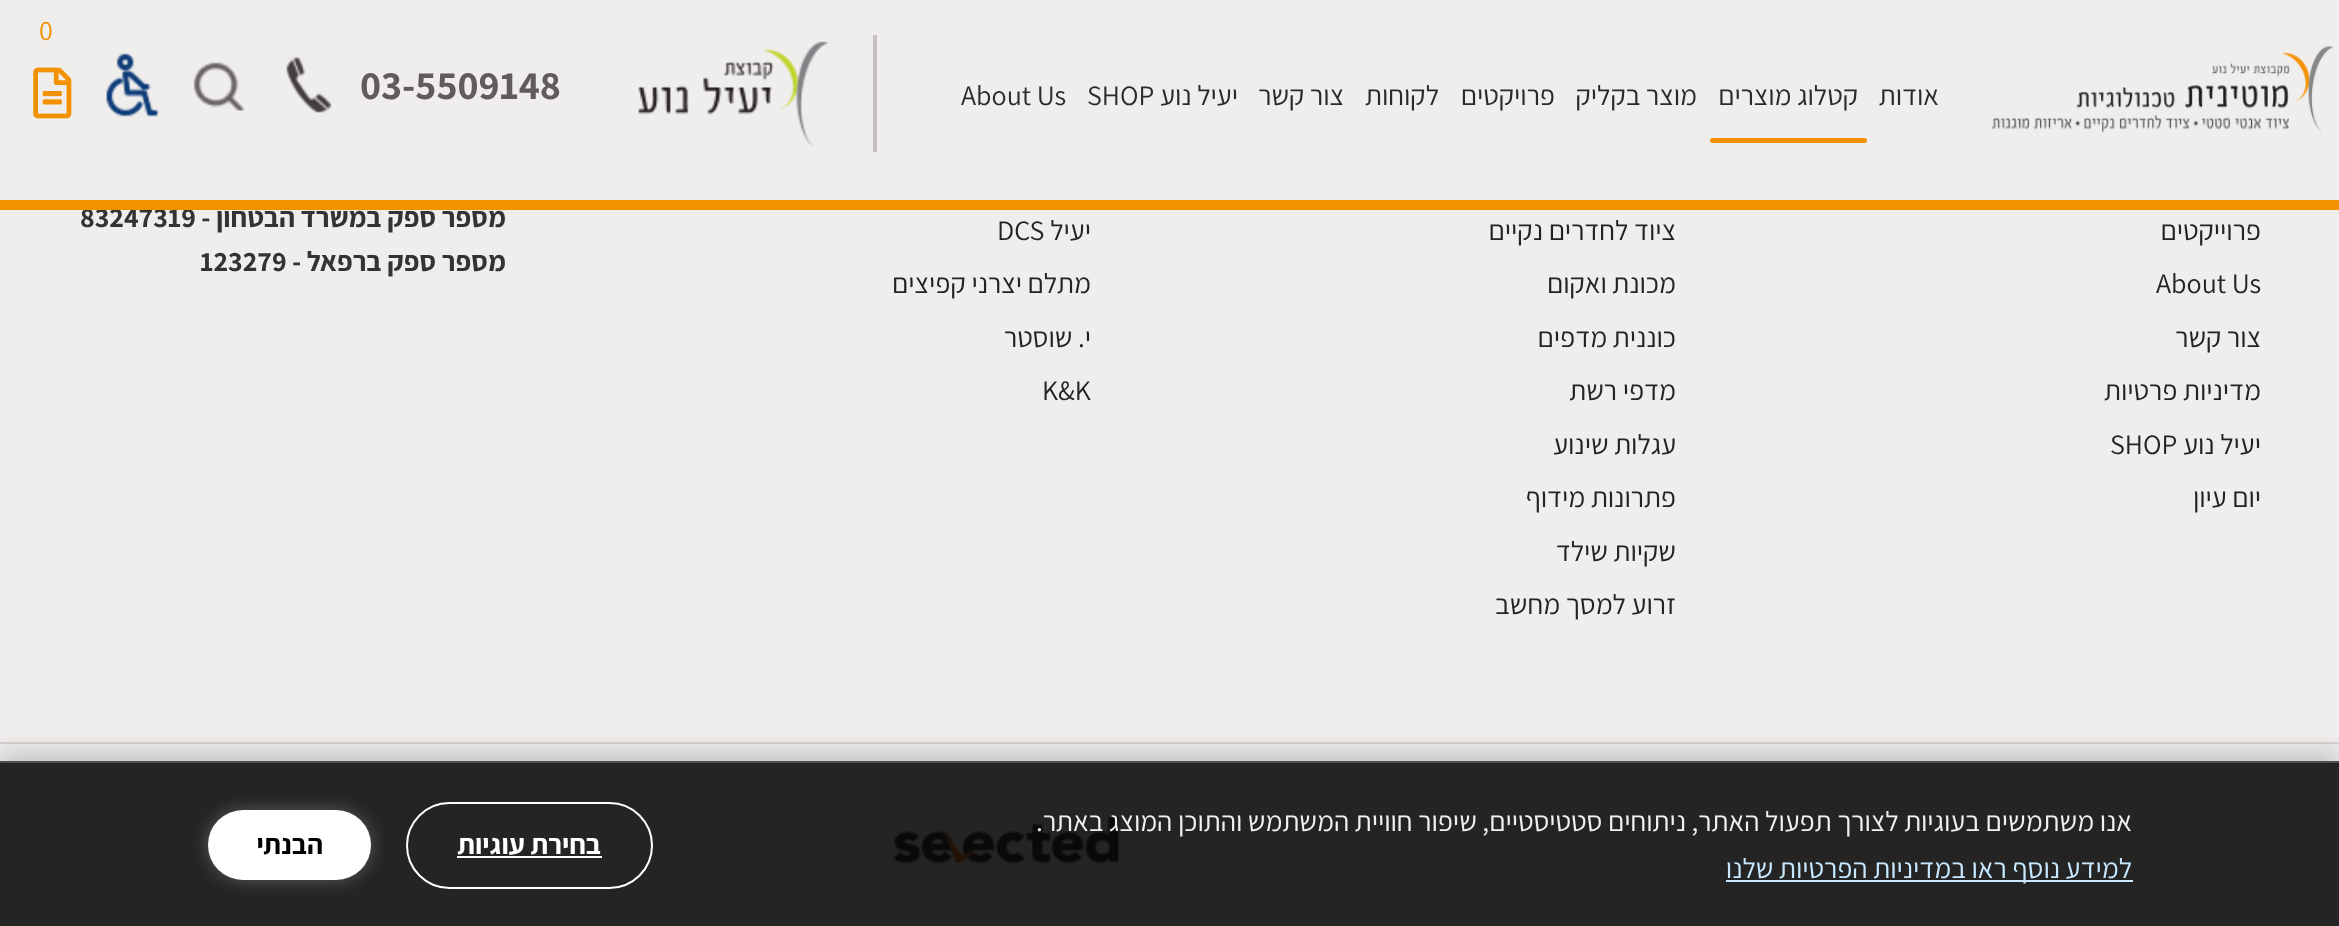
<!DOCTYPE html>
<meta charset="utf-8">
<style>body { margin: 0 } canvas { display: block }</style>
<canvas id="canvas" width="2339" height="926"></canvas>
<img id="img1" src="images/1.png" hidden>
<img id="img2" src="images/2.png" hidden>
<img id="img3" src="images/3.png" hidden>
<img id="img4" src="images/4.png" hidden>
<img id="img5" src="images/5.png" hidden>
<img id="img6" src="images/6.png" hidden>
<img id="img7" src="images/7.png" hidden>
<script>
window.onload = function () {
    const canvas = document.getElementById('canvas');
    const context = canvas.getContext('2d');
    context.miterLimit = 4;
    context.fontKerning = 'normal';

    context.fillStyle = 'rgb(240, 237, 237)';
    context.fillRect(0, 0, 2339, 926);
    context.drawImage(document.getElementById('img1'), 1992, 46, 342, 87);
    context.fillStyle = 'rgb(243, 146, 0)';
    context.beginPath();
    context.roundRect(1710, 138, 157, 5, 2.5);
    context.fill();
    context.drawImage(document.getElementById('img2'), 33, 67, 39, 52);
    context.fillStyle = 'rgb(199, 192, 192)';
    context.fillRect(873, 35, 4, 117);
    context.drawImage(document.getElementById('img3'), 638, 41, 191, 106);
    context.drawImage(document.getElementById('img4'), 286, 56, 46, 57);
    context.drawImage(document.getElementById('img5'), 193, 62, 52, 49);
    context.drawImage(document.getElementById('img6'), 106, 53, 53, 64);
    context.fillStyle = 'rgb(217, 208, 208)';
    context.fillRect(0, 742, 2339, 2);
    context.drawImage(document.getElementById('img7'), 893, 816, 226, 48);
    context.save();
    context.beginPath();
    context.rect(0, 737, 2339, 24);
    context.clip();
    context.fillStyle = 'rgba(0, 0, 0, 0.2)';
    context.filter = 'blur(13px)';
    context.beginPath();
    context.rect(0, 754, 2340, 167);
    context.fill();
    context.filter = 'none';
    context.restore();
    context.fillStyle = 'rgba(0, 0, 0, 0.85)';
    context.fillRect(0, 763, 2339, 163);
    context.fillStyle = 'rgb(79, 79, 79)';
    context.fillRect(0, 761, 2339, 2);
    context.fillStyle = 'rgb(199, 232, 255)';
    context.fillRect(1726, 880, 407, 2);
    context.beginPath();
    context.roundRect(407, 803, 245, 85, 42.5);
    context.strokeStyle = 'rgb(255, 255, 255)';
    context.lineWidth = 2;
    context.stroke();
    context.fillStyle = 'rgb(255, 255, 255)';
    context.fillRect(457, 856, 145, 2);
    context.fillStyle = 'rgba(255, 255, 255, 0.25)';
    context.filter = 'blur(9px)';
    context.beginPath();
    context.roundRect(208, 810, 163, 70, 35);
    context.fill();
    context.filter = 'none';
    context.fillStyle = 'rgb(255, 255, 255)';
    context.beginPath();
    context.roundRect(208, 810, 163, 70, 35);
    context.fill();
    context.direction = 'rtl';
    context.font = '28px Assistant';
    context.fillStyle = 'rgb(43, 42, 42)';
    context.fillText('אודות', 1939, 105);
    context.fillText('קטלוג מוצרים', 1858, 105);
    context.fillText('מוצר בקליק', 1697, 105);
    context.fillText('פרויקטים', 1555, 105);
    context.fillText('לקוחות', 1439, 105);
    context.fillText('צור קשר', 1344, 105);
    context.fillText('יעיל נוע', 1238, 105);
    context.direction = 'ltr';
    context.fillText('SHOP', 1087, 105);
    context.fillText('About Us', 961, 105);
    context.fillStyle = 'rgb(243, 146, 0)';
    context.fillText('0', 39, 40);
    context.font = 'bold 40.25px Assistant';
    context.fillStyle = 'rgb(99, 91, 91)';
    context.fillText('03-5509148', 360, 99);
    context.direction = 'rtl';
    context.font = '28px Assistant';
    context.fillStyle = 'rgb(36, 34, 34)';
    context.fillText('פרוייקטים', 2261, 240);
    context.direction = 'ltr';
    context.fillText('About Us', 2156, 293);
    context.direction = 'rtl';
    context.fillText('צור קשר', 2261, 347);
    context.fillText('מדיניות פרטיות', 2261, 400);
    context.fillText('יעיל נוע', 2261, 454);
    context.direction = 'ltr';
    context.fillText('SHOP', 2110, 454);
    context.direction = 'rtl';
    context.fillText('יום עיון', 2261, 507);
    context.fillText('ציוד לחדרים נקיים', 1676, 240);
    context.fillText('מכונת ואקום', 1676, 293);
    context.fillText('כוננית מדפים', 1676, 347);
    context.fillText('מדפי רשת', 1676, 400);
    context.fillText('עגלות שינוע', 1676, 454);
    context.fillText('פתרונות מידוף', 1676, 507);
    context.fillText('שקיות שילד', 1676, 561);
    context.fillText('זרוע למסך מחשב', 1676, 614);
    context.fillText('יעיל', 1091, 240);
    context.direction = 'ltr';
    context.fillText('DCS', 997, 240);
    context.direction = 'rtl';
    context.fillText('מתלם יצרני קפיצים', 1091, 293);
    context.fillText('י. שוסטר', 1091, 347);
    context.direction = 'ltr';
    context.fillText('K&K', 1042, 400);
    context.direction = 'rtl';
    context.font = 'bold 28px Assistant';
    context.fillStyle = 'rgb(53, 50, 50)';
    context.fillText('מספר ספק במשרד הבטחון -', 506, 227);
    context.direction = 'ltr';
    context.fillText('83247319', 80, 227);
    context.fillStyle = 'rgb(243, 146, 0)';
    context.fillRect(0, 200, 2339, 10);
    context.direction = 'rtl';
    context.fillStyle = 'rgb(53, 50, 50)';
    context.fillText('מספר ספק ברפאל -', 506, 271);
    context.direction = 'ltr';
    context.fillText('123279', 200, 271);
    context.direction = 'rtl';
    context.font = '28px Assistant';
    context.fillStyle = 'rgb(241, 241, 241)';
    context.fillText('אנו משתמשים בעוגיות לצורך תפעול האתר, ניתוחים סטטיסטיים, שיפור חוויית המשתמש והתוכן המוצג באתר.', 2132, 831);
    context.fillStyle = 'rgb(199, 232, 255)';
    context.fillText('למידע נוסף ראו במדיניות הפרטיות שלנו', 2132, 878);
    context.font = 'bold 28px Assistant';
    context.fillStyle = 'rgb(255, 255, 255)';
    context.fillText('בחירת עוגיות', 601, 854);
    context.fillStyle = 'rgb(0, 0, 0)';
    context.fillText('הבנתי', 323, 854);
};
</script>
